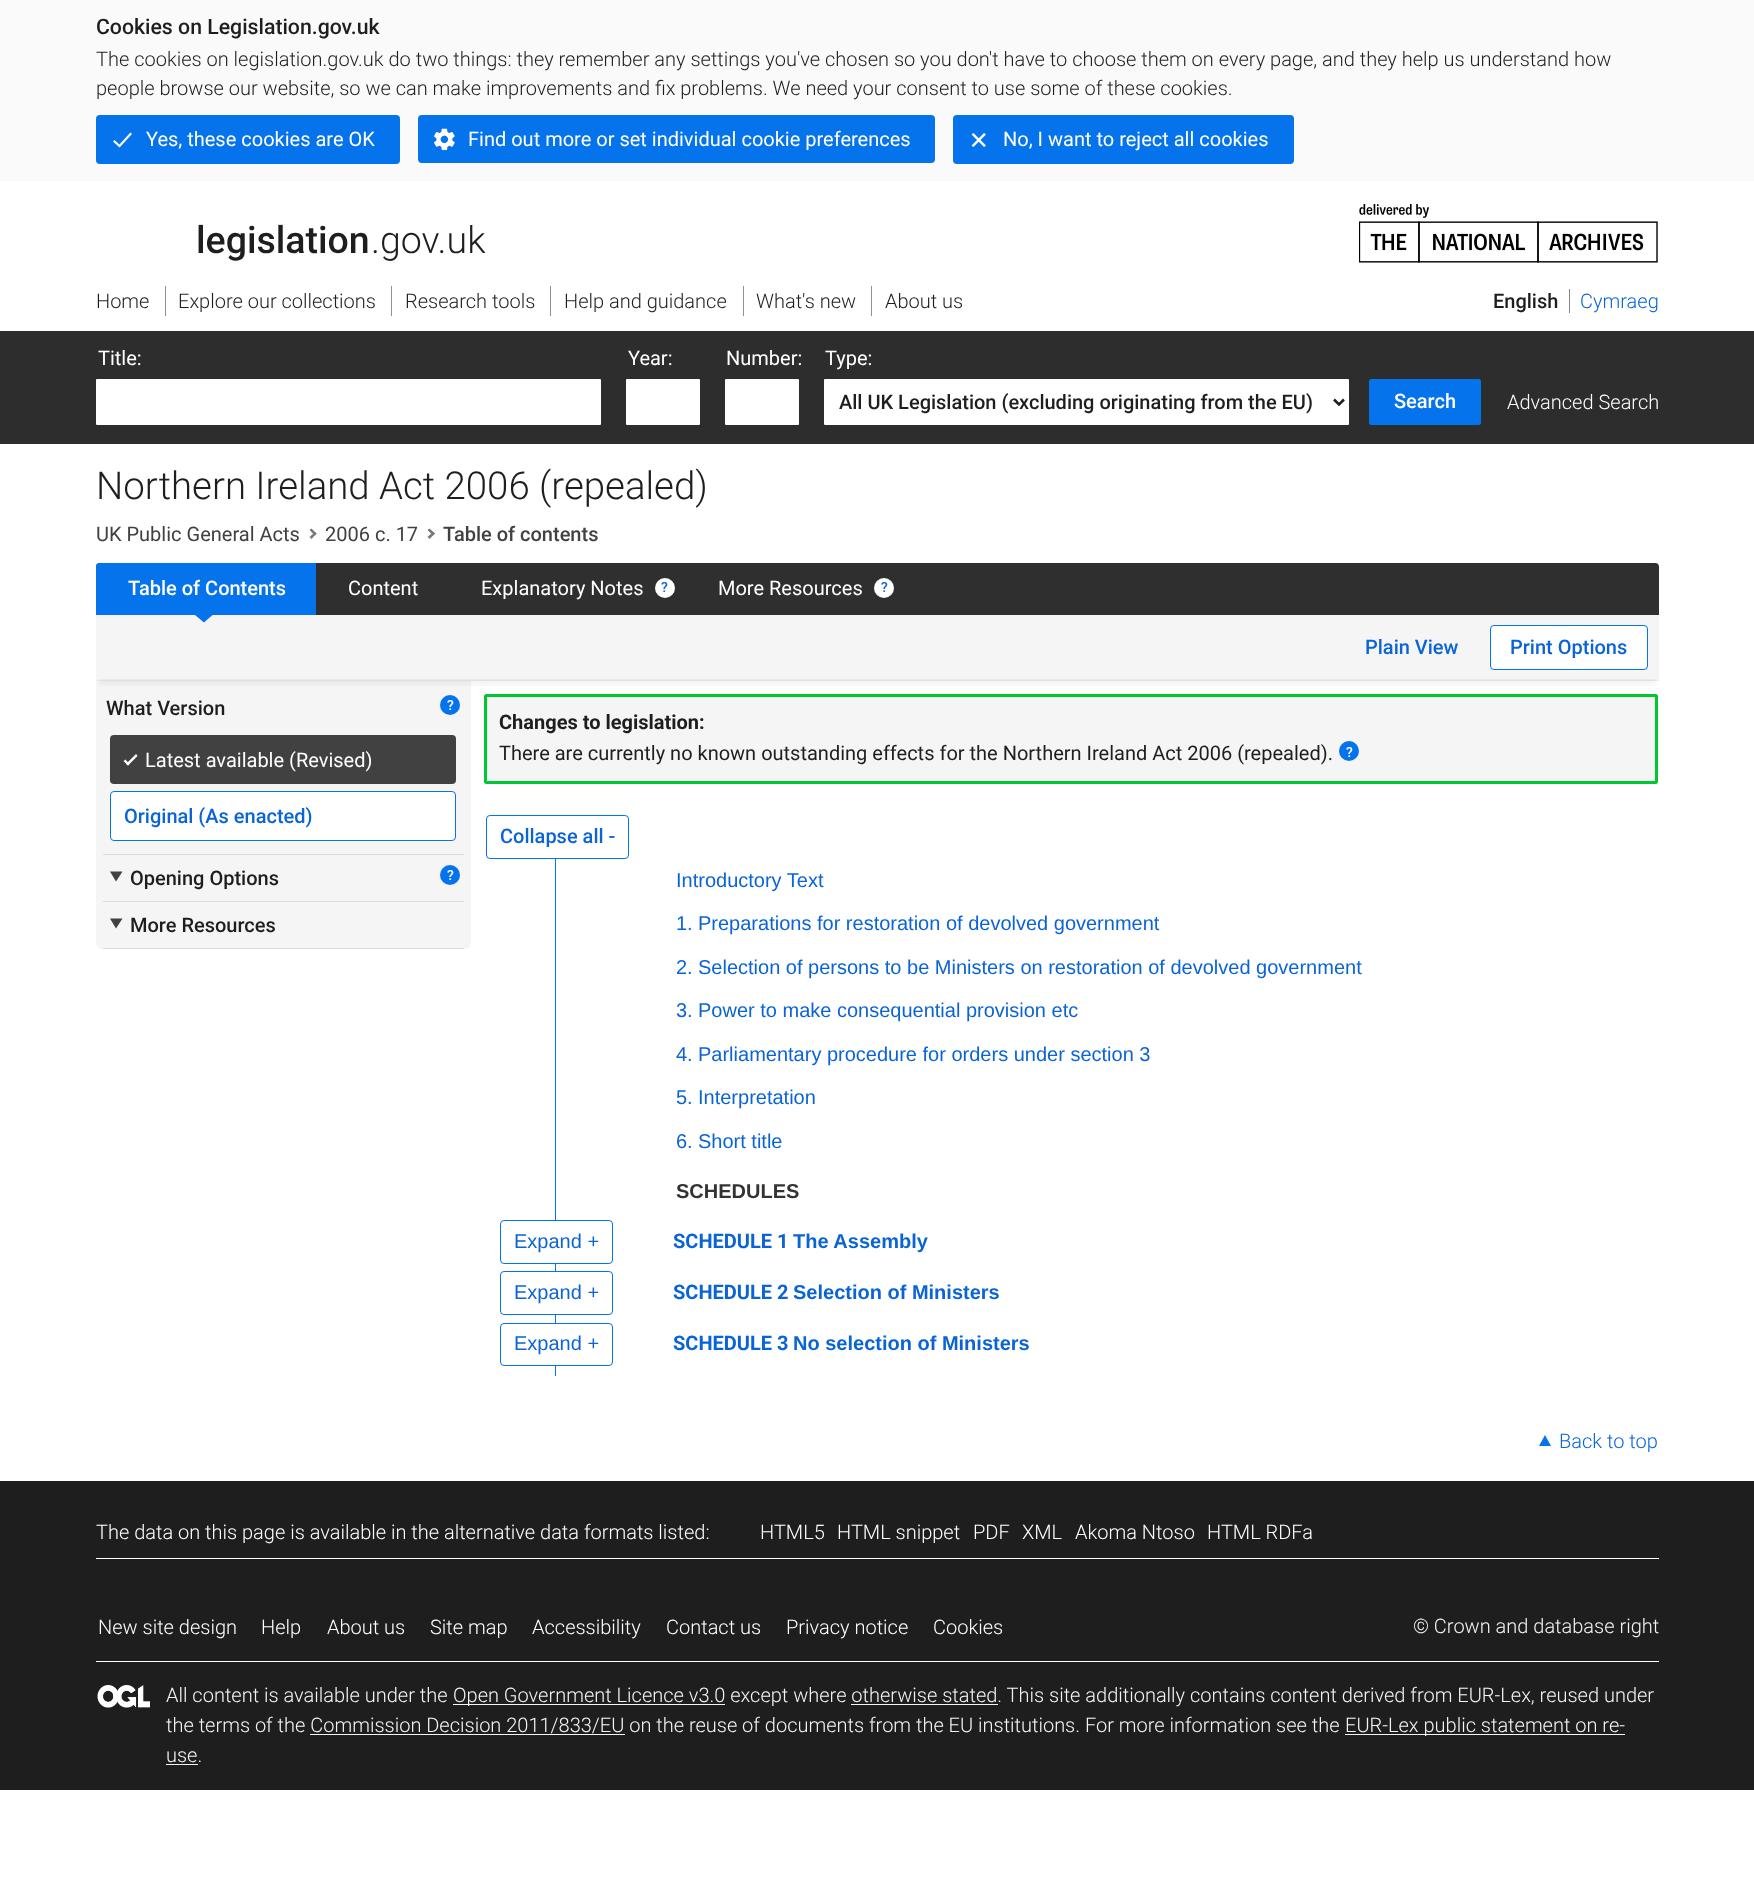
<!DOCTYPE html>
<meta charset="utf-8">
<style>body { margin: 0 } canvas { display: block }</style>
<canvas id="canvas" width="1754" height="1883"></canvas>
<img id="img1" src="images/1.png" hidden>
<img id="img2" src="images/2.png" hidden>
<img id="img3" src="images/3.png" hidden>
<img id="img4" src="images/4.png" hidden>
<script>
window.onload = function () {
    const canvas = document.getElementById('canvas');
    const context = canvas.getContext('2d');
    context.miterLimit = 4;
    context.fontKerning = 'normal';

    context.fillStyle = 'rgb(255, 255, 255)';
    context.fillRect(0, 0, 1754, 1883);
    context.fillStyle = 'rgb(250, 250, 250)';
    context.fillRect(0, 0, 1754, 181);
    context.fillStyle = 'rgb(5, 115, 235)';
    context.beginPath();
    context.roundRect(96, 115, 304, 49, 4);
    context.fill();
    context.beginPath();
    context.moveTo(130.5, 134);
    context.lineTo(119.5, 146);
    context.lineTo(114.5, 141.5);
    context.strokeStyle = 'rgb(255, 255, 255)';
    context.lineWidth = 2.1;
    context.lineCap = 'square';
    context.stroke();
    context.beginPath();
    context.roundRect(418, 115, 517, 48, 4);
    context.fill();
    context.drawImage(document.getElementById('img1'), 434, 128, 21, 23);
    context.beginPath();
    context.roundRect(953, 115, 341, 49, 4);
    context.fill();
    context.drawImage(document.getElementById('img2'), 971, 133, 15, 14);
    context.drawImage(document.getElementById('img3'), 1359, 204, 299, 59);
    context.fillStyle = 'rgb(135, 135, 135)';
    context.fillRect(1569, 289, 1, 24);
    context.fillStyle = 'rgb(45, 45, 45)';
    context.fillRect(0, 331, 1754, 113);
    context.fillStyle = 'rgb(145, 145, 145)';
    context.fillRect(165, 286, 1, 30);
    context.fillRect(391, 286, 1, 30);
    context.fillRect(550, 286, 1, 30);
    context.fillRect(743, 286, 1, 30);
    context.fillRect(871, 286, 1, 30);
    context.fillStyle = 'rgb(255, 255, 255)';
    context.beginPath();
    context.roundRect(96, 379, 505, 46, 1);
    context.fill();
    context.beginPath();
    context.roundRect(626, 379, 74, 46, 1);
    context.fill();
    context.beginPath();
    context.roundRect(725, 379, 74, 46, 1);
    context.fill();
    context.beginPath();
    context.roundRect(824, 379, 525, 46, 1);
    context.fill();
    context.beginPath();
    context.moveTo(1334, 399.5);
    context.lineTo(1339, 404.5);
    context.lineTo(1344, 399.5);
    context.strokeStyle = 'rgb(30, 30, 30)';
    context.lineWidth = 2.5;
    context.lineCap = 'butt';
    context.stroke();
    context.fillStyle = 'rgb(5, 115, 235)';
    context.beginPath();
    context.roundRect(1369, 379, 112, 46, 2.5);
    context.fill();
    context.fillStyle = 'rgb(120, 120, 120)';
    context.beginPath();
    context.moveTo(311.5, 528.5);
    context.lineTo(316.5, 533.5);
    context.lineTo(315, 535.5);
    context.lineTo(309.5, 530);
    context.closePath();
    context.fill();
    context.beginPath();
    context.moveTo(315, 532);
    context.lineTo(316.5, 533.5);
    context.lineTo(311.5, 539);
    context.lineTo(309.5, 537);
    context.closePath();
    context.fill();
    context.beginPath();
    context.moveTo(429.5, 528.5);
    context.lineTo(435, 533.5);
    context.lineTo(433, 535.5);
    context.lineTo(427.5, 530);
    context.closePath();
    context.fill();
    context.beginPath();
    context.moveTo(433, 532);
    context.lineTo(435, 533.5);
    context.lineTo(429.5, 539);
    context.lineTo(427.5, 537);
    context.closePath();
    context.fill();
    context.fillStyle = 'rgb(46, 47, 46)';
    context.beginPath();
    context.roundRect(96, 563, 1563, 52, [4, 4, 0, 0]);
    context.fill();
    context.fillStyle = 'rgb(5, 115, 235)';
    context.beginPath();
    context.roundRect(96, 563, 220, 52, [4, 0, 0, 0]);
    context.fill();
    context.fillStyle = 'rgb(245, 245, 245)';
    context.fillRect(96, 615, 1563, 65);
    context.fillStyle = 'rgb(5, 115, 235)';
    context.beginPath();
    context.moveTo(195, 615);
    context.lineTo(212.5, 615);
    context.lineTo(204, 622.5);
    context.closePath();
    context.fill();
    context.fillStyle = 'rgb(255, 255, 255)';
    context.beginPath();
    context.arc(665, 588, 10, 0, 2 * Math.PI);
    context.fill();
    context.beginPath();
    context.arc(884, 588, 10, 0, 2 * Math.PI);
    context.fill();
    context.fillStyle = 'rgb(235, 235, 235)';
    context.fillRect(96, 680, 1563, 1);
    context.fillStyle = 'rgb(255, 255, 255)';
    context.beginPath();
    context.roundRect(1490.5, 625.5, 157, 44, 3.5);
    context.fill();
    context.strokeStyle = 'rgb(5, 115, 235)';
    context.lineWidth = 1;
    context.stroke();
    context.fillStyle = 'rgb(245, 245, 245)';
    context.beginPath();
    context.roundRect(96, 681, 375, 268, [0, 0, 6, 6]);
    context.fill();
    context.fillStyle = 'rgb(220, 220, 220)';
    context.fillRect(103, 854, 361, 1);
    context.fillStyle = 'rgb(5, 115, 235)';
    context.beginPath();
    context.arc(450, 705, 10, 0, 2 * Math.PI);
    context.fill();
    context.fillStyle = 'rgb(65, 65, 65)';
    context.beginPath();
    context.roundRect(110, 735, 346, 49, 4);
    context.fill();
    context.fillStyle = 'rgb(255, 255, 255)';
    context.beginPath();
    context.moveTo(136, 754);
    context.lineTo(137.5, 756);
    context.lineTo(128, 765.5);
    context.lineTo(126, 764);
    context.closePath();
    context.fill();
    context.beginPath();
    context.moveTo(125.5, 759.5);
    context.lineTo(129.5, 764);
    context.lineTo(128, 765.5);
    context.lineTo(123.5, 761);
    context.closePath();
    context.fill();
    context.beginPath();
    context.roundRect(110.5, 791.5, 345, 49, 3.5);
    context.fill();
    context.stroke();
    context.fillStyle = 'rgb(220, 220, 220)';
    context.fillRect(103, 901, 361, 1);
    context.fillStyle = 'rgb(65, 65, 65)';
    context.beginPath();
    context.moveTo(110, 871.5);
    context.lineTo(122.5, 871.5);
    context.lineTo(116, 881.5);
    context.closePath();
    context.moveTo(110, 918.5);
    context.lineTo(122.5, 918.5);
    context.lineTo(116, 928.5);
    context.closePath();
    context.fill();
    context.fillStyle = 'rgb(5, 115, 235)';
    context.beginPath();
    context.arc(450, 875, 10, 0, 2 * Math.PI);
    context.fill();
    context.fillStyle = 'rgb(220, 220, 220)';
    context.fillRect(103, 948, 361, 1);
    context.fillStyle = 'rgb(245, 245, 245)';
    context.beginPath();
    context.roundRect(485.5, 695.5, 1171, 87, 1);
    context.fill();
    context.strokeStyle = 'rgb(0, 200, 50)';
    context.lineWidth = 3;
    context.stroke();
    context.save();
    context.beginPath();
    context.rect(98, 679, 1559, 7);
    context.clip();
    context.fillStyle = 'rgba(1, 1, 1, 0.07)';
    context.filter = 'blur(4px)';
    context.beginPath();
    context.rect(99, 676, 1557, 8);
    context.fill();
    context.filter = 'none';
    context.restore();
    context.fillStyle = 'rgb(5, 115, 235)';
    context.beginPath();
    context.arc(1349, 751, 10, 0, 2 * Math.PI);
    context.fill();
    context.beginPath();
    context.roundRect(486.5, 815.5, 142, 43, 3.5);
    context.strokeStyle = 'rgb(5, 115, 235)';
    context.lineWidth = 1;
    context.stroke();
    context.fillRect(555, 859, 1, 517);
    context.fillStyle = 'rgb(255, 255, 255)';
    context.beginPath();
    context.roundRect(500.5, 1220.5, 112, 43, 3.5);
    context.fill();
    context.stroke();
    context.beginPath();
    context.roundRect(500.5, 1271.5, 112, 43, 3.5);
    context.fill();
    context.stroke();
    context.beginPath();
    context.roundRect(500.5, 1323.5, 112, 42, 3.5);
    context.fill();
    context.stroke();
    context.fillStyle = 'rgb(5, 115, 235)';
    context.beginPath();
    context.moveTo(1551, 1446);
    context.lineTo(1539, 1446);
    context.lineTo(1545, 1435);
    context.closePath();
    context.fill();
    context.fillStyle = 'rgb(30, 30, 30)';
    context.fillRect(0, 1481, 1754, 309);
    context.fillStyle = 'rgb(255, 255, 255)';
    context.fillRect(96, 1558, 1563, 1);
    context.fillRect(96, 1661, 1563, 1);
    context.drawImage(document.getElementById('img4'), 97, 1685, 53, 23);
    context.fillStyle = 'rgb(245, 245, 245)';
    context.fillRect(453, 1704, 272, 1);
    context.fillRect(851, 1704, 147, 1);
    context.fillRect(310, 1734, 315, 1);
    context.fillRect(1345, 1734, 280, 1);
    context.fillRect(166, 1764, 32, 1);
    context.font = '500 21.25px Roboto';
    context.fillStyle = 'rgb(30, 30, 30)';
    context.fillText('Cookies on Legislation.gov.uk', 96, 34);
    context.font = '300 20px Roboto';
    context.fillText('The cookies on legislation.gov.uk do two things: they remember any settings you\'ve chosen so you don\'t have to choose them on every page, and they help us understand how', 96, 66);
    context.fillText('people browse our website, so we can make improvements and fix problems. We need your consent to use some of these cookies.', 96, 95);
    context.font = '20px Roboto';
    context.fillStyle = 'rgb(255, 255, 255)';
    context.fillText('Yes, these cookies are OK', 146, 146);
    context.fillText('Find out more or set individual cookie preferences', 468, 146);
    context.fillText('No, I want to reject all cookies', 1003, 146);
    context.font = '500 37.5px Roboto';
    context.fillStyle = 'rgb(30, 30, 30)';
    context.fillText('legislation', 196, 253);
    context.font = '300 37.5px Roboto';
    context.fillText('.gov.uk', 371, 253);
    context.font = '500 20px Roboto';
    context.fillText('English', 1493, 308);
    context.font = '300 20px Roboto';
    context.fillStyle = 'rgb(10, 100, 215)';
    context.fillText('Cymraeg', 1580, 308);
    context.fillStyle = 'rgb(30, 30, 30)';
    context.fillText('Home', 96, 308);
    context.fillText('Explore our collections', 178, 308);
    context.fillText('Research tools', 405, 308);
    context.fillText('Help and guidance', 564, 308);
    context.fillText('What\'s new', 756, 308);
    context.fillText('About us', 885, 308);
    context.font = '20px Roboto';
    context.fillStyle = 'rgb(255, 255, 255)';
    context.fillText('Title:', 98, 365);
    context.fillText('Year:', 628, 365);
    context.fillText('Number:', 726, 365);
    context.fillText('Type:', 825, 365);
    context.font = '500 20px Roboto';
    context.fillStyle = 'rgb(30, 30, 30)';
    context.fillText('All UK Legislation (excluding originating from the EU)', 839, 409);
    context.fillStyle = 'rgb(255, 255, 255)';
    context.fillText('Search', 1394, 408);
    context.font = '300 20px Roboto';
    context.fillText('Advanced Search', 1507, 409);
    context.font = '300 38.4px Roboto';
    context.fillStyle = 'rgb(30, 30, 30)';
    context.fillText('Northern Ireland Act 2006 (repealed)', 96, 499);
    context.font = '20px Roboto';
    context.fillStyle = 'rgb(65, 65, 65)';
    context.fillText('UK Public General Acts', 96, 541);
    context.fillText('2006 c. 17', 325, 541);
    context.font = '500 20px Roboto';
    context.fillText('Table of contents', 443, 541);
    context.fillStyle = 'rgb(255, 255, 255)';
    context.fillText('Table of Contents', 128, 595);
    context.font = '20px Roboto';
    context.fillText('Content', 348, 595);
    context.fillText('Explanatory Notes', 481, 595);
    context.font = '500 14px Roboto';
    context.fillStyle = 'rgb(10, 100, 215)';
    context.fillText('?', 661, 592);
    context.font = '20px Roboto';
    context.fillStyle = 'rgb(255, 255, 255)';
    context.fillText('More Resources', 718, 595);
    context.font = '500 14px Roboto';
    context.fillStyle = 'rgb(10, 100, 215)';
    context.fillText('?', 881, 592);
    context.font = '500 20px Roboto';
    context.fillText('Plain View', 1365, 654);
    context.fillText('Print Options', 1510, 654);
    context.fillStyle = 'rgb(30, 30, 30)';
    context.fillText('What Version', 106, 715);
    context.font = '500 14px Roboto';
    context.fillStyle = 'rgb(255, 255, 255)';
    context.fillText('?', 447, 710);
    context.font = '20px Roboto';
    context.fillText('Latest available (Revised)', 145, 767);
    context.font = '500 20px Roboto';
    context.fillStyle = 'rgb(10, 100, 215)';
    context.fillText('Original (As enacted)', 124, 823);
    context.fillStyle = 'rgb(30, 30, 30)';
    context.fillText('Opening Options', 130, 885);
    context.font = '500 14px Roboto';
    context.fillStyle = 'rgb(255, 255, 255)';
    context.fillText('?', 447, 880);
    context.font = '500 20px Roboto';
    context.fillStyle = 'rgb(30, 30, 30)';
    context.fillText('More Resources', 130, 932);
    context.font = 'bold 20px Roboto';
    context.fillText('Changes to legislation:', 499, 729);
    context.font = '20px Roboto';
    context.fillText('There are currently no known outstanding effects for the Northern Ireland Act 2006 (repealed).', 499, 760);
    context.font = '500 14px Roboto';
    context.fillStyle = 'rgb(255, 255, 255)';
    context.fillText('?', 1346, 757);
    context.font = '500 20px Roboto';
    context.fillStyle = 'rgb(10, 100, 215)';
    context.fillText('Collapse all -', 500, 843);
    context.font = '20px Liberation Sans';
    context.fillText('Introductory Text', 676, 887);
    context.fillText('1.', 676, 930);
    context.fillText('Preparations for restoration of devolved government', 698, 930);
    context.fillText('2.', 676, 974);
    context.fillText('Selection of persons to be Ministers on restoration of devolved government', 698, 974);
    context.fillText('3.', 676, 1017);
    context.fillText('Power to make consequential provision etc', 698, 1017);
    context.fillText('4.', 676, 1061);
    context.fillText('Parliamentary procedure for orders under section 3', 698, 1061);
    context.fillText('5.', 676, 1104);
    context.fillText('Interpretation', 698, 1104);
    context.fillText('6.', 676, 1148);
    context.fillText('Short title', 698, 1148);
    context.font = 'bold 20px Liberation Sans';
    context.fillStyle = 'rgb(51, 51, 51)';
    context.fillText('SCHEDULES', 676, 1198);
    context.font = '20px Liberation Sans';
    context.fillStyle = 'rgb(10, 100, 215)';
    context.fillText('Expand +', 514, 1248);
    context.font = 'bold 20px Roboto';
    context.fillText('SCHEDULE 1', 673, 1248);
    context.font = 'bold 20px Liberation Sans';
    context.fillText('The Assembly', 793, 1248);
    context.font = '20px Liberation Sans';
    context.fillText('Expand +', 514, 1299);
    context.font = 'bold 20px Roboto';
    context.fillText('SCHEDULE 2', 673, 1299);
    context.font = 'bold 20px Liberation Sans';
    context.fillText('Selection of Ministers', 793, 1299);
    context.font = '20px Liberation Sans';
    context.fillText('Expand +', 514, 1350);
    context.font = 'bold 20px Roboto';
    context.fillText('SCHEDULE 3', 673, 1350);
    context.font = 'bold 20px Liberation Sans';
    context.fillText('No selection of Ministers', 793, 1350);
    context.font = '300 20px Roboto';
    context.fillText('Back to top', 1559, 1448);
    context.fillStyle = 'rgb(255, 255, 255)';
    context.fillText('The data on this page is available in the alternative data formats listed:', 96, 1539);
    context.fillText('HTML5', 760, 1539);
    context.fillText('HTML snippet', 837, 1539);
    context.fillText('PDF', 973, 1539);
    context.fillText('XML', 1022, 1539);
    context.fillText('Akoma Ntoso', 1075, 1539);
    context.fillText('HTML RDFa', 1207, 1539);
    context.fillStyle = 'rgb(245, 245, 245)';
    context.fillText('© Crown and database right', 1413, 1633);
    context.fillText('All content is available under the', 166, 1702);
    context.fillText('Open Government Licence v3.0 except where otherwise stated. This site additionally contains content derived from EUR-Lex, reused under', 453, 1702);
    context.fillText('the terms of the Commission Decision 2011/833/EU on the reuse of documents from the EU institutions. For more information see the', 166, 1732);
    context.fillText('EUR-Lex public statement on re-', 1345, 1732);
    context.fillText('use.', 166, 1762);
    context.fillStyle = 'rgb(255, 255, 255)';
    context.fillText('New site design', 98, 1634);
    context.fillText('Help', 261, 1634);
    context.fillText('About us', 327, 1634);
    context.fillText('Site map', 430, 1634);
    context.fillText('Accessibility', 532, 1634);
    context.fillText('Contact us', 666, 1634);
    context.fillText('Privacy notice', 786, 1634);
    context.fillText('Cookies', 933, 1634);
};
</script>
